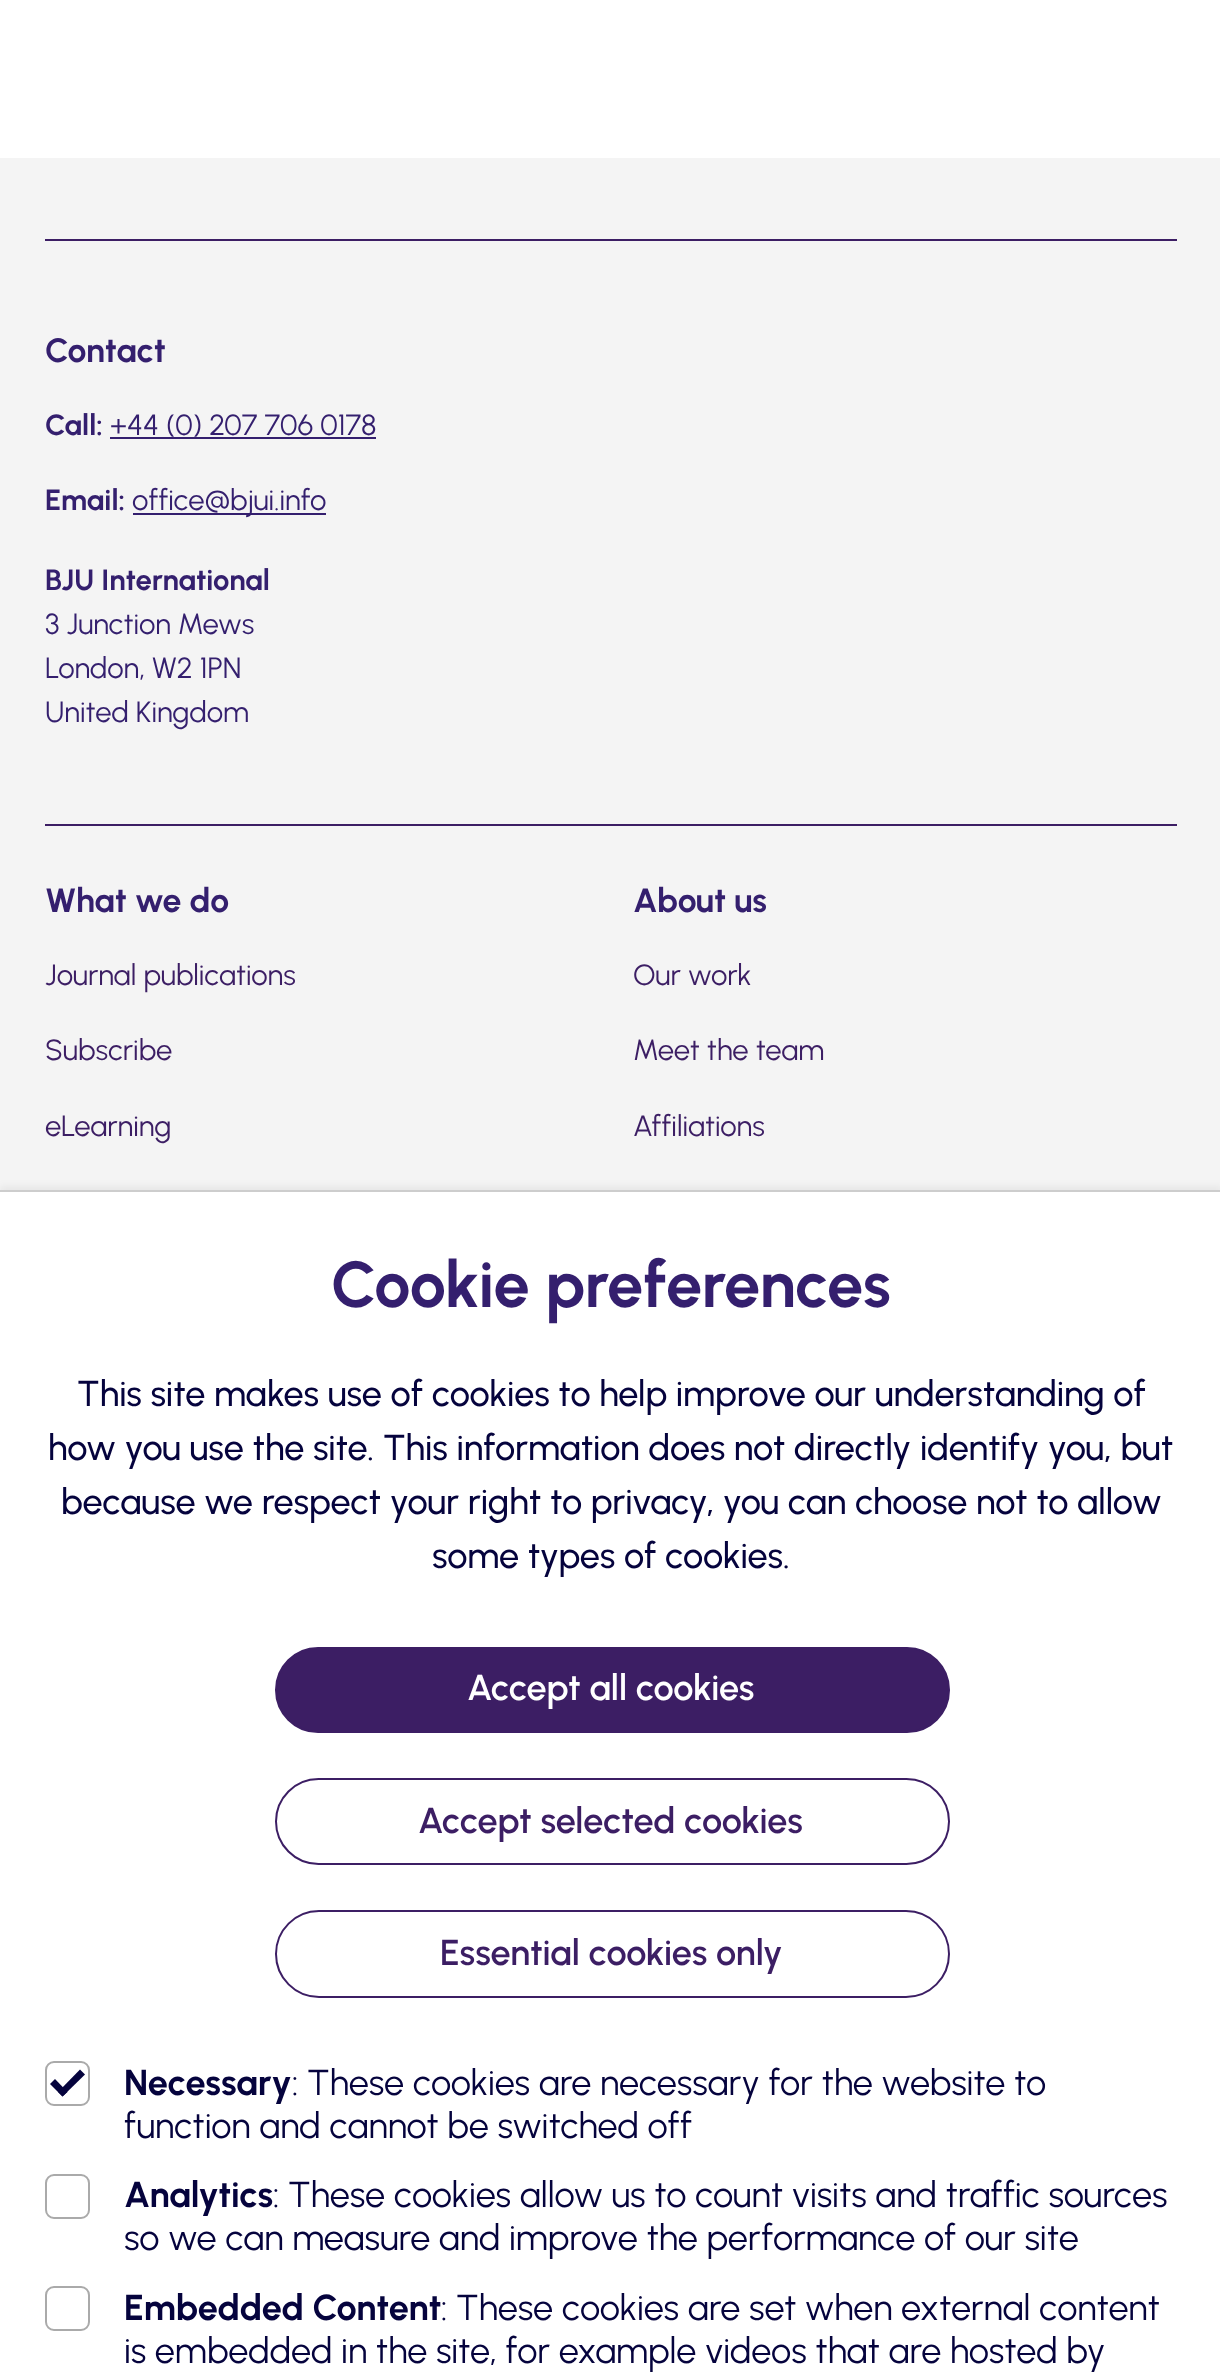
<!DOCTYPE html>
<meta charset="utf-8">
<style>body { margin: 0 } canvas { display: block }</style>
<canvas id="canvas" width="1220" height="2379"></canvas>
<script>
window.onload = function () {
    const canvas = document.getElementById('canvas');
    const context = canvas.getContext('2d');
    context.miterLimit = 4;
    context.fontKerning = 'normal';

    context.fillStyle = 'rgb(255, 255, 255)';
    context.fillRect(0, 0, 1220, 2379);
    context.fillStyle = 'rgb(244, 244, 244)';
    context.fillRect(0, 158, 1220, 1032);
    context.fillStyle = 'rgb(60, 30, 100)';
    context.fillRect(45, 239, 1132, 2);
    context.fillRect(45, 824, 1132, 2);
    context.fillStyle = 'rgb(52, 31, 110)';
    context.fillRect(110, 437, 266, 2);
    context.fillRect(133, 513, 193, 2);
    context.fillStyle = 'rgba(0, 0, 0, 0.05)';
    context.filter = 'blur(3.5px)';
    context.beginPath();
    context.rect(0, 1186, 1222, 1190);
    context.fill();
    context.filter = 'none';
    context.fillStyle = 'rgb(255, 255, 255)';
    context.fillRect(0, 1192, 1220, 1187);
    context.fillStyle = 'rgb(205, 205, 205)';
    context.fillRect(0, 1190, 1220, 2);
    context.fillStyle = 'rgb(60, 30, 100)';
    context.beginPath();
    context.roundRect(276, 1648, 673, 84, 42);
    context.fill();
    context.strokeStyle = 'rgb(60, 30, 100)';
    context.lineWidth = 2;
    context.stroke();
    context.beginPath();
    context.roundRect(276, 1779, 673, 85, 42.5);
    context.stroke();
    context.beginPath();
    context.roundRect(276, 1911, 673, 86, 43);
    context.stroke();
    context.beginPath();
    context.roundRect(46, 2062, 43, 43, 8);
    context.strokeStyle = 'rgb(170, 170, 170)';
    context.stroke();
    context.fillStyle = 'rgb(5, 3, 61)';
    context.beginPath();
    context.moveTo(80, 2069.5);
    context.lineTo(85, 2074.5);
    context.lineTo(62.5, 2096.5);
    context.lineTo(58, 2092);
    context.closePath();
    context.fill();
    context.beginPath();
    context.moveTo(55, 2079);
    context.lineTo(67.5, 2092);
    context.lineTo(62.5, 2096.5);
    context.lineTo(50, 2084);
    context.closePath();
    context.fill();
    context.beginPath();
    context.roundRect(46, 2175, 43, 43, 8);
    context.stroke();
    context.beginPath();
    context.roundRect(46, 2287, 43, 43, 8);
    context.stroke();
    context.font = 'bold 33.75px Urbanist';
    context.fillStyle = 'rgb(52, 31, 110)';
    context.fillText('Contact', 45, 362);
    context.font = 'bold 29.25px Urbanist';
    context.fillText('Call:', 45, 435);
    context.font = '29.25px Urbanist';
    context.fillText('+44 (0) 207 706 0178', 110, 435);
    context.font = 'bold 29.25px Urbanist';
    context.fillText('Email:', 45, 510);
    context.font = '29.25px Urbanist';
    context.fillText('office@bjui.info', 132, 510);
    context.font = 'bold 29.25px Urbanist';
    context.fillText('BJU International', 45, 590);
    context.font = '29.25px Urbanist';
    context.fillText('3 Junction Mews', 45, 634);
    context.fillText('London, W2 1PN', 45, 678);
    context.fillText('United Kingdom', 45, 722);
    context.font = 'bold 33.75px Urbanist';
    context.fillText('What we do', 45, 912);
    context.font = '29.25px Urbanist';
    context.fillStyle = 'rgb(60, 30, 100)';
    context.fillText('Journal publications', 45, 985);
    context.fillText('Subscribe', 45, 1060);
    context.fillText('eLearning', 45, 1136);
    context.font = 'bold 33.75px Urbanist';
    context.fillStyle = 'rgb(52, 31, 110)';
    context.fillText('About us', 633, 912);
    context.font = '29.25px Urbanist';
    context.fillStyle = 'rgb(60, 30, 100)';
    context.fillText('Our work', 633, 985);
    context.fillText('Meet the team', 633, 1060);
    context.fillText('Affiliations', 633, 1136);
    context.font = 'bold 64.75px Urbanist';
    context.fillStyle = 'rgb(52, 31, 110)';
    context.fillText('Cookie preferences', 331, 1307);
    context.font = '500 36px Urbanist';
    context.fillStyle = 'rgb(5, 3, 61)';
    context.fillText('This site makes use of cookies to help improve our understanding of', 77, 1406);
    context.fillText('how you use the site. This information does not directly identify you, but', 48, 1460);
    context.fillText('because we respect your right to privacy, you can choose not to allow', 61, 1514);
    context.fillText('some types of cookies.', 432, 1568);
    context.font = '600 36px Urbanist';
    context.fillStyle = 'rgb(255, 255, 255)';
    context.fillText('Accept all cookies', 467, 1700);
    context.fillStyle = 'rgb(60, 30, 100)';
    context.fillText('Accept selected cookies', 418, 1833);
    context.fillText('Essential cookies only', 440, 1965);
    context.font = 'bold 36px Urbanist';
    context.fillStyle = 'rgb(5, 3, 61)';
    context.fillText('Necessary', 124, 2095);
    context.font = '36px Urbanist';
    context.fillText(': These cookies are necessary for the website to', 292, 2095);
    context.fillText('function and cannot be switched off', 124, 2138);
    context.font = 'bold 36px Urbanist';
    context.fillText('Analytics', 124, 2207);
    context.font = '36px Urbanist';
    context.fillText(': These cookies allow us to count visits and traffic sources', 273, 2207);
    context.fillText('so we can measure and improve the performance of our site', 124, 2250);
    context.font = 'bold 36px Urbanist';
    context.fillText('Embedded Content', 124, 2320);
    context.font = '36px Urbanist';
    context.fillText(': These cookies are set when external content', 441, 2320);
    context.fillText('is embedded in the site, for example videos that are hosted by', 124, 2363);
};
</script>
